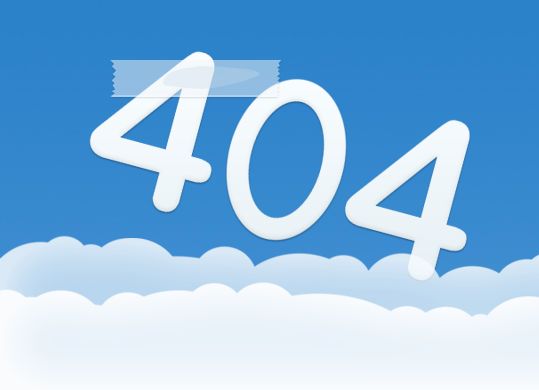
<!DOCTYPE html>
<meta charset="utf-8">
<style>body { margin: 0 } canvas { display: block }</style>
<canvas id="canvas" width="539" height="390"></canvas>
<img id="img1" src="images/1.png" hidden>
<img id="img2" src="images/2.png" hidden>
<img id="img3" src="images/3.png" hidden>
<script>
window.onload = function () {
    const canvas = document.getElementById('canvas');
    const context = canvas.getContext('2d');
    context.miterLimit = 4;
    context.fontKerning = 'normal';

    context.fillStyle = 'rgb(255, 255, 255)';
    context.fillRect(0, 0, 539, 390);
    context.drawImage(document.getElementById('img1'), 0, 0, 539, 369);
    context.drawImage(document.getElementById('img2'), 89, 51, 382, 232);
    context.drawImage(document.getElementById('img3'), 0, 235, 539, 155);
};
</script>
